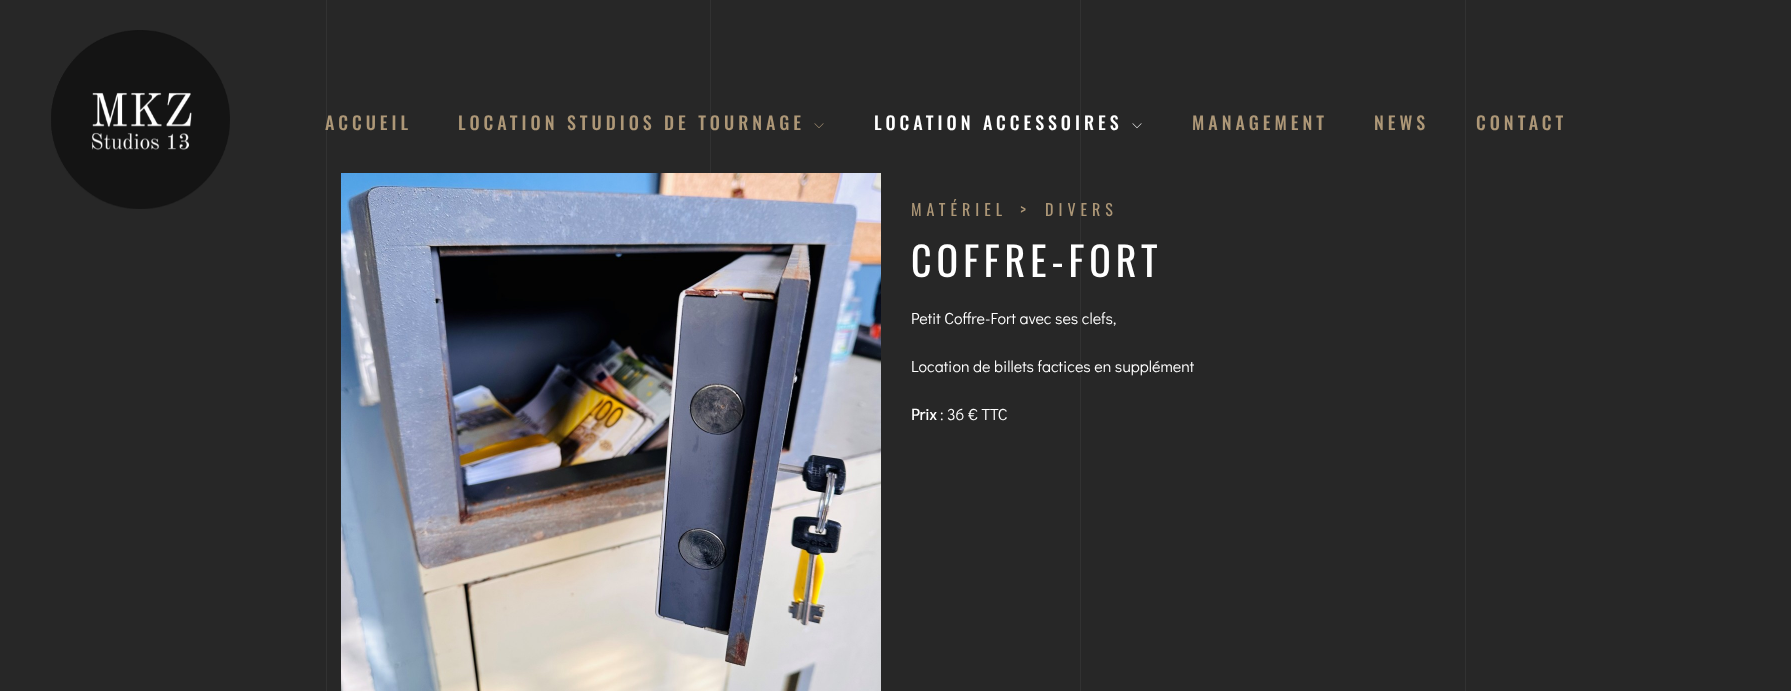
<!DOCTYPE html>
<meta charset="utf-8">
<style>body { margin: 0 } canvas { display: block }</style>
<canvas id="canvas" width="1791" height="691"></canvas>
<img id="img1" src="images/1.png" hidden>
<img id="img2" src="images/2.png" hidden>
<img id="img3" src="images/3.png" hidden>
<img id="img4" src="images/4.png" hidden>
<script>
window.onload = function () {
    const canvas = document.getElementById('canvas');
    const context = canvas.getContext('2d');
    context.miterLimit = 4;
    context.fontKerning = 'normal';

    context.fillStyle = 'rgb(39, 39, 39)';
    context.fillRect(0, 0, 1791, 691);
    context.drawImage(document.getElementById('img1'), 51, 30, 179, 179);
    context.drawImage(document.getElementById('img2'), 814, 123, 10, 5);
    context.drawImage(document.getElementById('img3'), 1132, 123, 10, 6);
    context.fillStyle = 'rgb(50, 50, 50)';
    context.fillRect(1465, 0, 1, 691);
    context.fillRect(326, 0, 1, 691);
    context.fillRect(1080, 0, 1, 691);
    context.fillRect(710, 0, 1, 173);
    context.drawImage(document.getElementById('img4'), 341, 173, 540, 518);
    context.letterSpacing = '4px';
    context.font = '500 18px Oswald';
    context.fillStyle = 'rgb(173, 151, 119)';
    context.fillText('ACCUEIL', 325, 130);
    context.fillText('LOCATION STUDIOS DE TOURNAGE', 458, 130);
    context.fillStyle = 'rgb(255, 255, 255)';
    context.fillText('LOCATION ACCESSOIRES', 874, 130);
    context.fillStyle = 'rgb(173, 151, 119)';
    context.fillText('MANAGEMENT', 1192, 130);
    context.fillText('NEWS', 1374, 130);
    context.fillText('CONTACT', 1476, 130);
    context.letterSpacing = '5px';
    context.font = '16px Oswald';
    context.fillText('MATÉRIEL', 911, 216);
    context.fillText('>', 1020, 216);
    context.fillText('DIVERS', 1045, 216);
    context.font = '40px Oswald';
    context.fillStyle = 'rgb(255, 255, 255)';
    context.fillText('COFFRE-FORT', 911, 277);
    context.letterSpacing = '0px';
    context.font = '16px Didact Gothic';
    context.fillText('Petit Coffre-Fort avec ses clefs,', 911, 324);
    context.fillText('Location de billets factices en supplément', 911, 372);
    context.font = 'bold 16px Didact Gothic';
    context.fillText('Prix', 911, 420);
    context.font = '16px Didact Gothic';
    context.fillText(': 36 € TTC', 940, 420);
};
</script>
